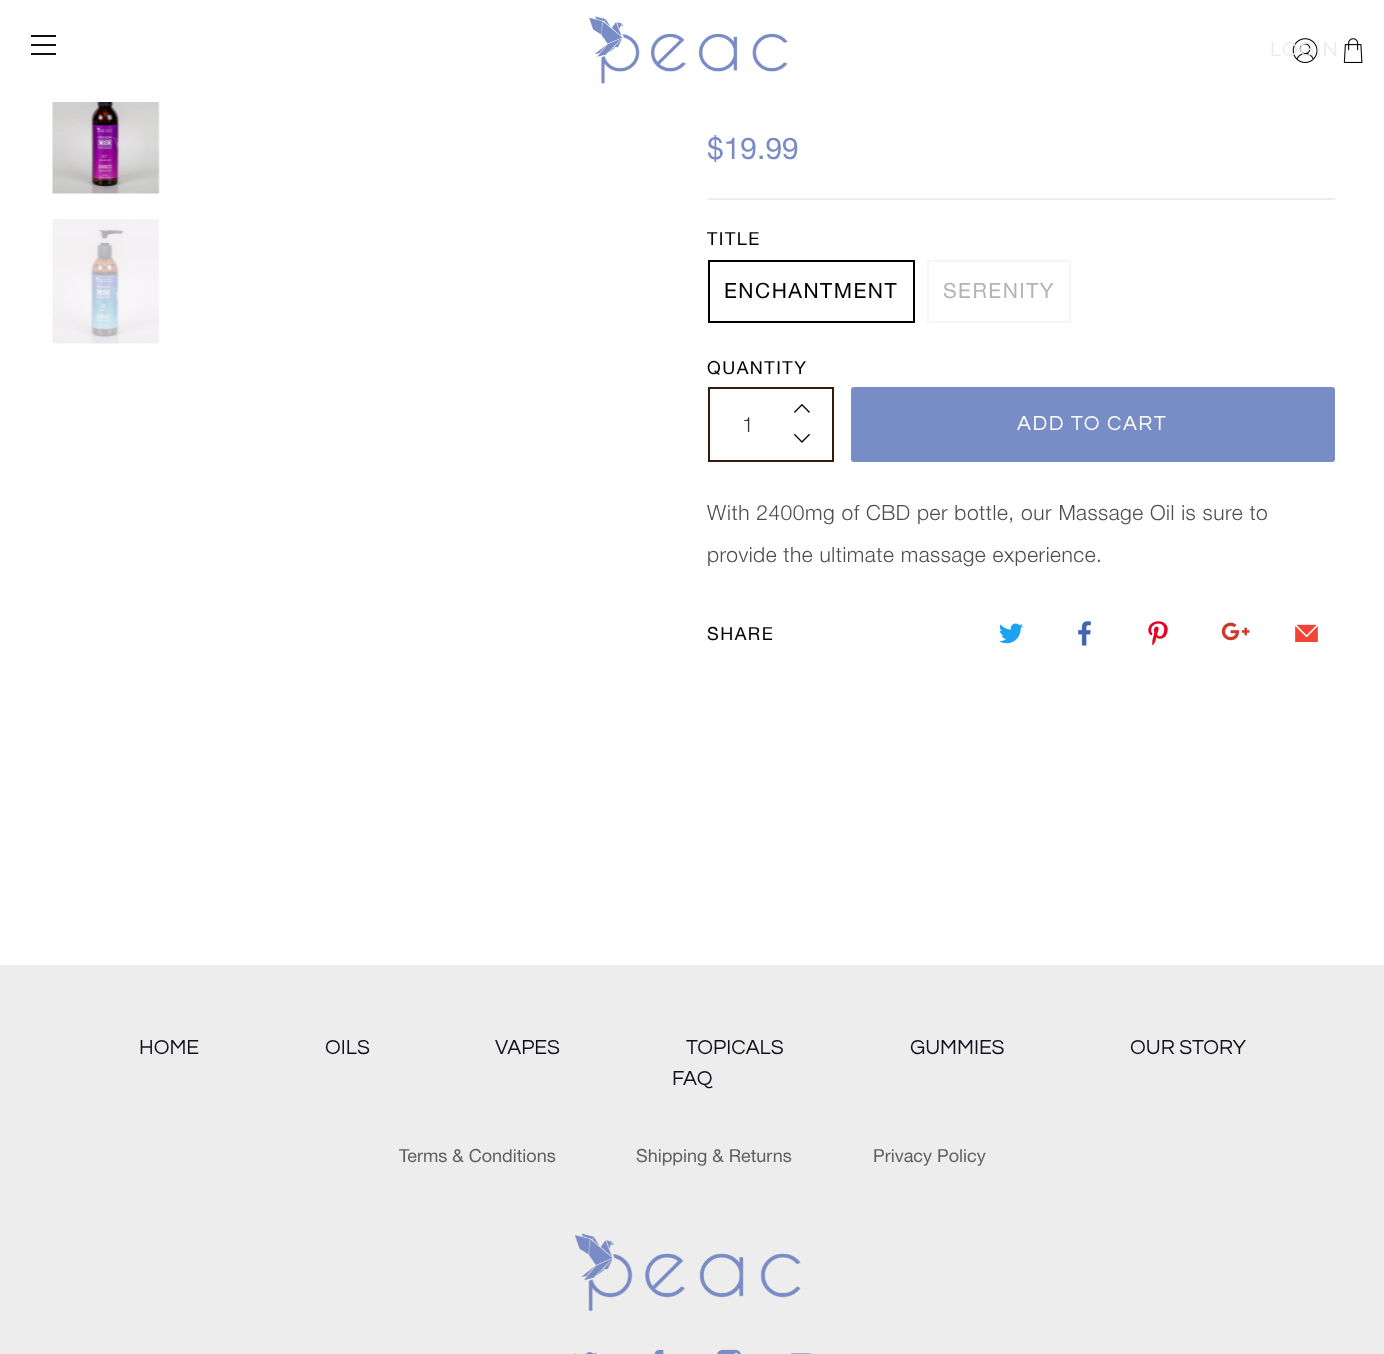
<!DOCTYPE html>
<meta charset="utf-8">
<style>body { margin: 0 } canvas { display: block }</style>
<canvas id="canvas" width="1384" height="1354"></canvas>
<img id="img1" src="images/1.png" hidden>
<img id="img2" src="images/2.png" hidden>
<img id="img3" src="images/3.png" hidden>
<img id="img4" src="images/4.png" hidden>
<img id="img5" src="images/5.png" hidden>
<img id="img6" src="images/6.png" hidden>
<img id="img7" src="images/7.png" hidden>
<img id="img8" src="images/8.png" hidden>
<img id="img9" src="images/9.png" hidden>
<img id="img10" src="images/10.png" hidden>
<img id="img11" src="images/11.png" hidden>
<img id="img12" src="images/12.png" hidden>
<img id="img13" src="images/13.png" hidden>
<img id="img14" src="images/14.png" hidden>
<img id="img15" src="images/15.png" hidden>
<img id="img16" src="images/16.png" hidden>
<img id="img17" src="images/17.png" hidden>
<script>
window.onload = function () {
    const canvas = document.getElementById('canvas');
    const context = canvas.getContext('2d');
    context.miterLimit = 4;
    context.fontKerning = 'normal';

    context.fillStyle = 'rgb(255, 255, 255)';
    context.fillRect(0, 0, 1384, 1354);
    context.fillStyle = 'rgb(15, 16, 26)';
    context.fillRect(31, 35, 25, 2);
    context.fillRect(31, 44, 25, 2);
    context.fillRect(31, 53, 25, 2);
    context.drawImage(document.getElementById('img1'), 589, 16, 199, 68);
    context.drawImage(document.getElementById('img2'), 1292, 38, 26, 25);
    context.drawImage(document.getElementById('img3'), 1343, 38, 20, 25);
    context.drawImage(document.getElementById('img4'), 52, 102, 108, 92);
    context.drawImage(document.getElementById('img5'), 52, 219, 108, 125);
    context.fillStyle = 'rgb(237, 237, 237)';
    context.fillRect(708, 198, 627, 2);
    context.strokeStyle = 'rgb(0, 0, 0)';
    context.lineWidth = 2;
    context.strokeRect(709, 261, 205, 61);
    context.strokeStyle = 'rgb(246, 246, 246)';
    context.strokeRect(928, 261, 142, 61);
    context.strokeStyle = 'rgb(53, 27, 12)';
    context.strokeRect(709, 388, 124, 73);
    context.drawImage(document.getElementById('img6'), 794, 403, 16, 10);
    context.drawImage(document.getElementById('img7'), 794, 433, 16, 10);
    context.fillStyle = 'rgb(120, 140, 197)';
    context.beginPath();
    context.roundRect(852, 388, 482, 73, 2);
    context.fill();
    context.strokeStyle = 'rgb(120, 140, 197)';
    context.stroke();
    context.drawImage(document.getElementById('img8'), 999, 623, 24, 21);
    context.drawImage(document.getElementById('img9'), 1078, 621, 13, 25);
    context.drawImage(document.getElementById('img10'), 1148, 621, 20, 25);
    context.drawImage(document.getElementById('img11'), 1221, 622, 29, 19);
    context.drawImage(document.getElementById('img12'), 1295, 624, 23, 18);
    context.fillStyle = 'rgb(237, 237, 237)';
    context.fillRect(0, 965, 1384, 389);
    context.drawImage(document.getElementById('img13'), 574, 1233, 227, 78);
    context.drawImage(document.getElementById('img14'), 574, 1352, 23, 2);
    context.drawImage(document.getElementById('img15'), 654, 1349, 10, 5);
    context.drawImage(document.getElementById('img16'), 717, 1349, 24, 5);
    context.drawImage(document.getElementById('img17'), 791, 1353, 20, 1);
    context.letterSpacing = '1.5px';
    context.font = '21px Questrial';
    context.fillStyle = 'rgb(235, 235, 235)';
    context.fillText('LOGIN', 1270, 56);
    context.letterSpacing = '0px';
    context.font = '30px Helvetica Neue';
    context.fillStyle = 'rgb(121, 139, 197)';
    context.fillText('$19.99', 707, 159);
    context.letterSpacing = '1.5px';
    context.font = '18px Helvetica Neue';
    context.fillStyle = 'rgb(0, 0, 0)';
    context.fillText('TITLE', 707, 245);
    context.font = '21px Helvetica Neue';
    context.fillText('ENCHANTMENT', 724, 298);
    context.fillStyle = 'rgb(179, 179, 179)';
    context.fillText('SERENITY', 943, 298);
    context.font = '18px Helvetica Neue';
    context.fillStyle = 'rgb(0, 0, 0)';
    context.fillText('QUANTITY', 707, 374);
    context.letterSpacing = '0px';
    context.font = '300 21px Helvetica Neue';
    context.fillStyle = 'rgb(54, 54, 54)';
    context.fillText('1', 742, 432);
    context.letterSpacing = '1.5px';
    context.font = '21px Questrial';
    context.fillStyle = 'rgb(255, 255, 255)';
    context.fillText('ADD TO CART', 1017, 430);
    context.letterSpacing = '0.5px';
    context.font = '300 21px Helvetica Neue';
    context.fillStyle = 'rgb(77, 77, 77)';
    context.fillText('With 2400mg of CBD per bottle, our Massage Oil is sure to', 707, 520);
    context.fillText('provide the ultimate massage experience.', 707, 562);
    context.letterSpacing = '1.5px';
    context.font = '18px Helvetica Neue';
    context.fillStyle = 'rgb(0, 0, 0)';
    context.fillText('SHARE', 707, 640);
    context.letterSpacing = '0px';
    context.font = '21px Questrial';
    context.fillStyle = 'rgb(15, 16, 26)';
    context.fillText('HOME', 139, 1054);
    context.fillText('OILS', 325, 1054);
    context.fillText('VAPES', 495, 1054);
    context.fillText('TOPICALS', 686, 1054);
    context.fillText('GUMMIES', 910, 1054);
    context.fillText('OUR STORY', 1130, 1054);
    context.fillText('FAQ', 672, 1085);
    context.font = '18px Helvetica Neue';
    context.fillStyle = 'rgb(95, 95, 95)';
    context.fillText('Terms & Conditions', 399, 1162);
    context.fillText('Shipping & Returns', 636, 1162);
    context.fillText('Privacy Policy', 873, 1162);
};
</script>
